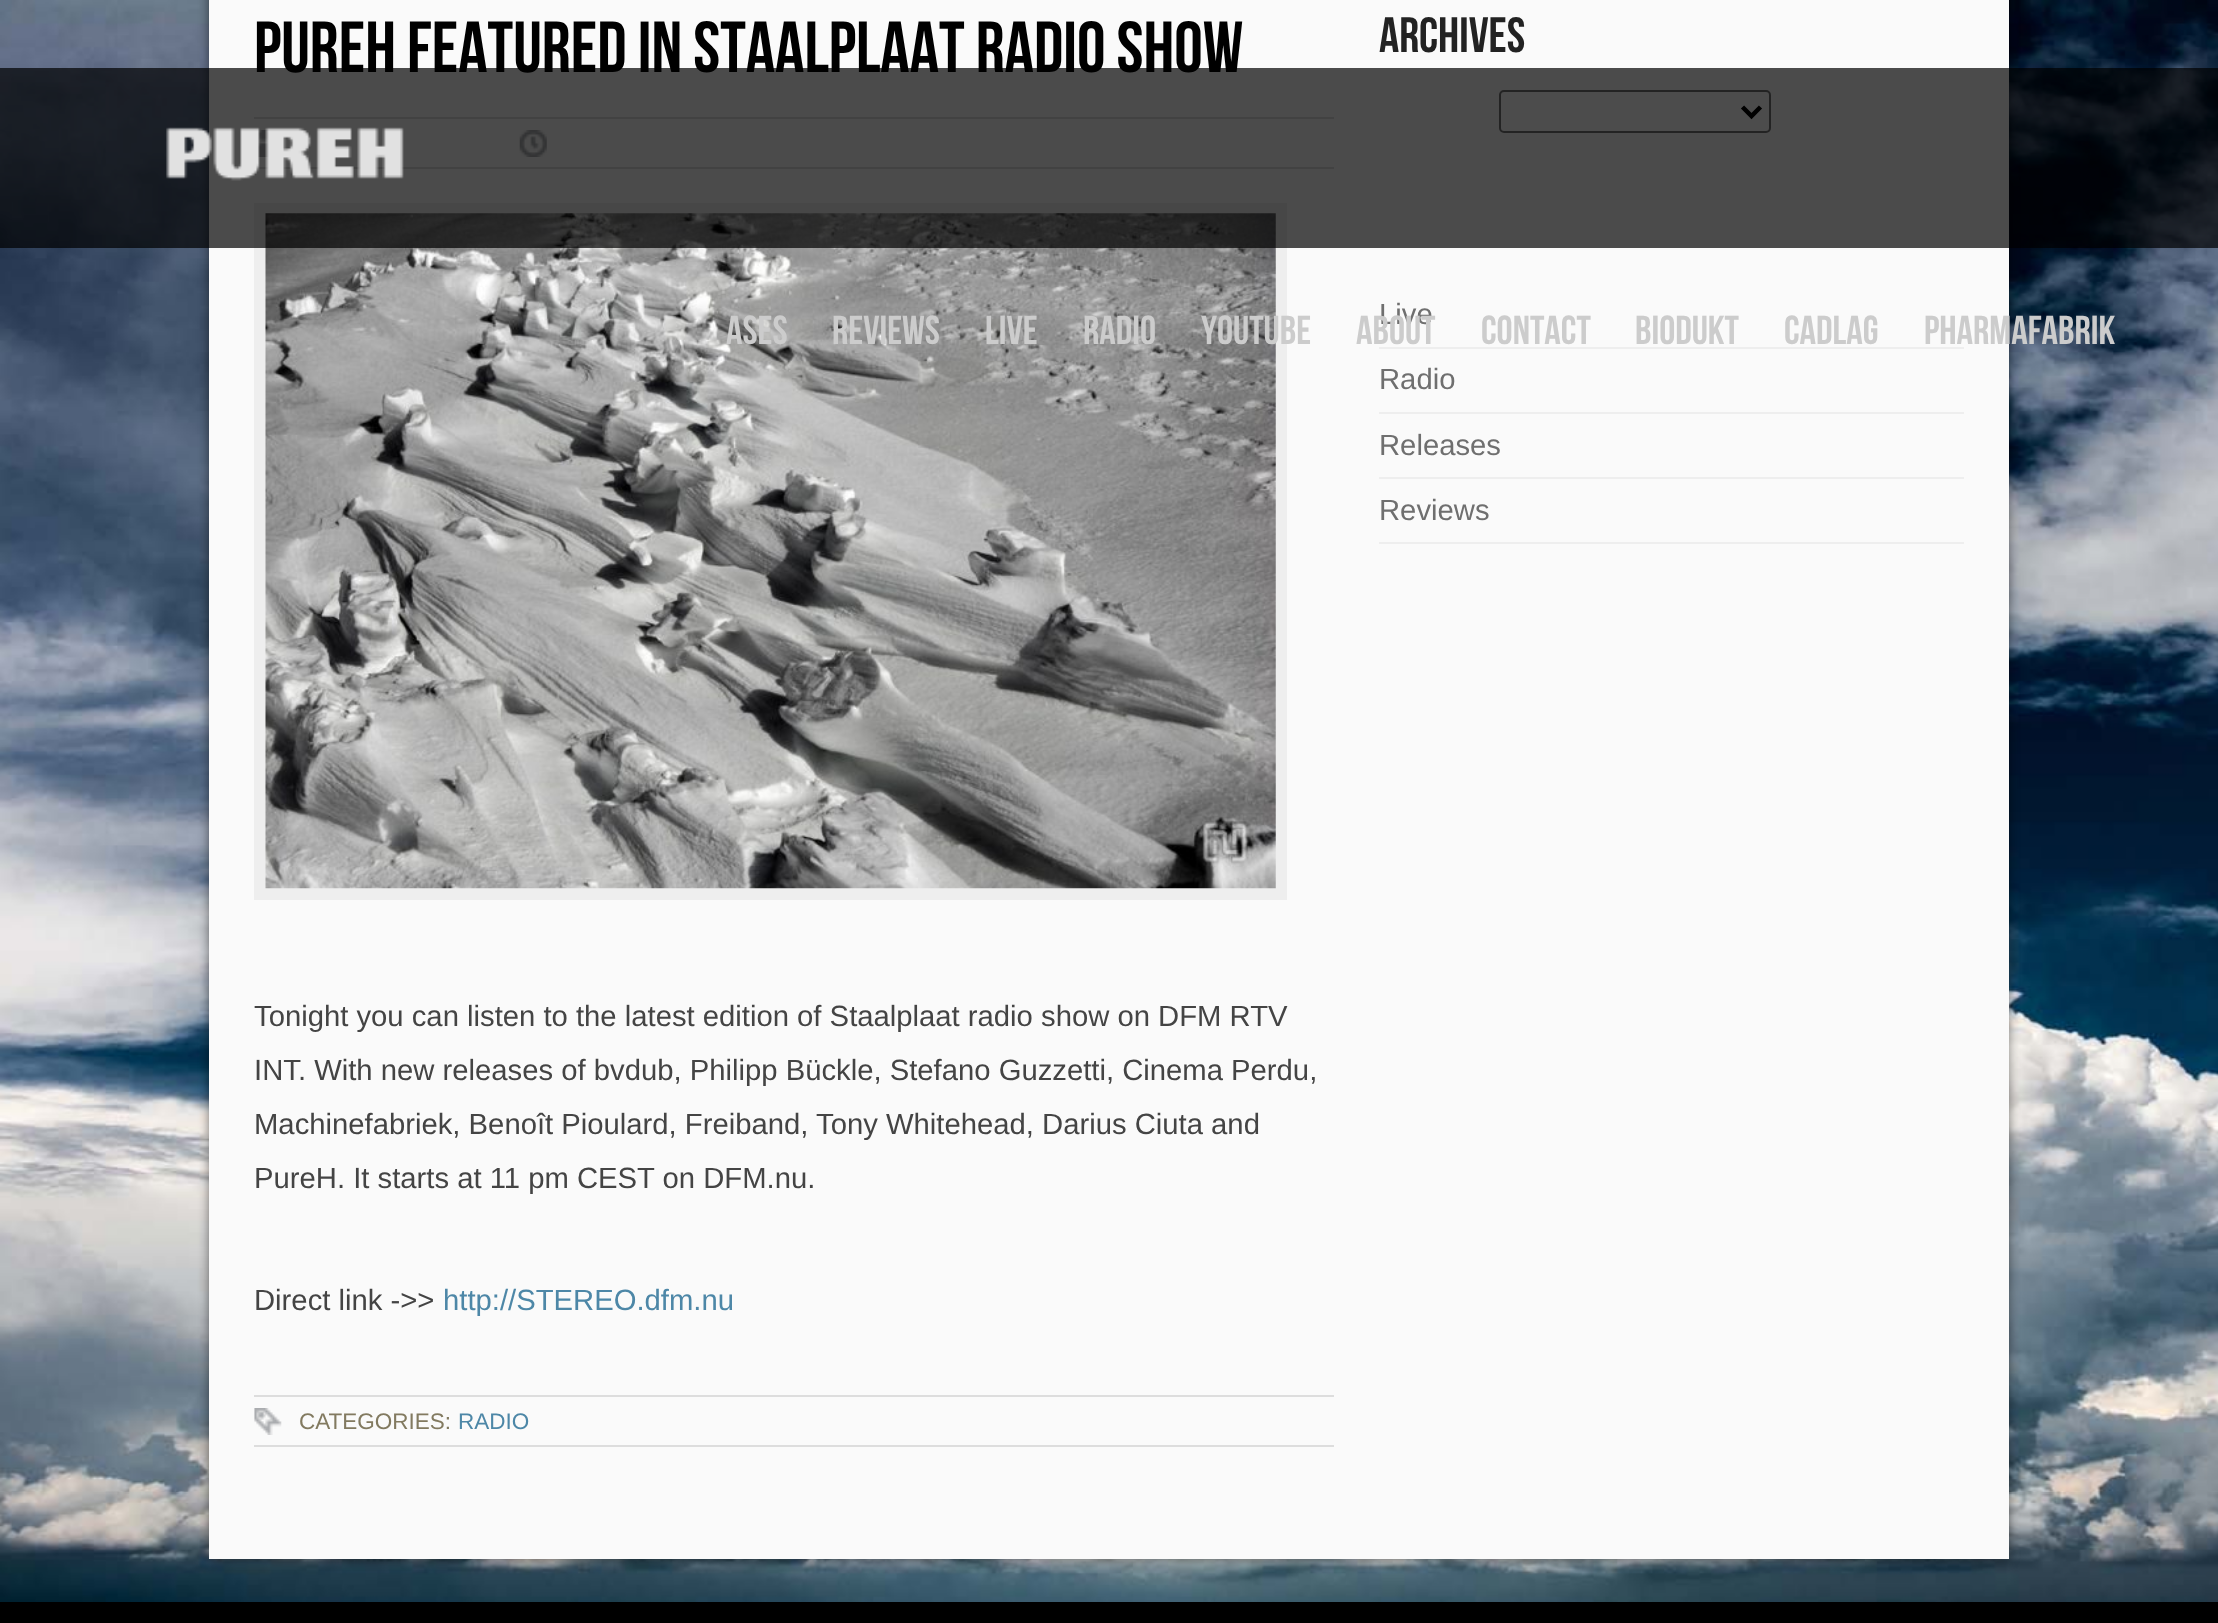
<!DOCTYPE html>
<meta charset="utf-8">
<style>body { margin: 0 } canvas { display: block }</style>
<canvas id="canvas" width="2218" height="1623"></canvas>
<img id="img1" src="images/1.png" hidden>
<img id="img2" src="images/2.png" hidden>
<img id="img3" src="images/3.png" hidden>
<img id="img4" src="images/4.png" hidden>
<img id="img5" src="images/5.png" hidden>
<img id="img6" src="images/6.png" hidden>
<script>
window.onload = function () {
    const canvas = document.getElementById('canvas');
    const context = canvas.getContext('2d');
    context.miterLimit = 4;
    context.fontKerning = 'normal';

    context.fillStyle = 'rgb(255, 255, 255)';
    context.fillRect(0, 0, 2218, 1623);
    context.drawImage(document.getElementById('img1'), 0, 0, 2218, 1602);
    context.fillStyle = 'rgba(0, 0, 0, 0.5)';
    context.filter = 'blur(5.5px)';
    context.beginPath();
    context.rect(209, -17, 1800, 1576);
    context.fill();
    context.filter = 'none';
    context.fillStyle = 'rgb(250, 250, 250)';
    context.fillRect(209, 0, 1800, 1559);
    context.fillStyle = 'rgb(221, 221, 221)';
    context.fillRect(254, 117, 1080, 2);
    context.fillRect(254, 167, 1080, 2);
    context.drawImage(document.getElementById('img2'), 258, 130, 13, 27);
    context.drawImage(document.getElementById('img3'), 519, 130, 28, 27);
    context.fillStyle = 'rgb(238, 238, 238)';
    context.fillRect(254, 203, 1033, 697);
    context.drawImage(document.getElementById('img4'), 265, 213, 1011, 676);
    context.fillStyle = 'rgb(221, 221, 221)';
    context.fillRect(254, 1395, 1080, 2);
    context.fillRect(254, 1445, 1080, 2);
    context.drawImage(document.getElementById('img5'), 254, 1408, 28, 27);
    context.fillStyle = 'rgb(255, 255, 255)';
    context.beginPath();
    context.roundRect(1500, 91, 270, 41, 4);
    context.fill();
    context.strokeStyle = 'rgb(118, 118, 118)';
    context.lineWidth = 2;
    context.stroke();
    context.beginPath();
    context.moveTo(1742.5, 107);
    context.lineTo(1751.5, 116);
    context.lineTo(1760.5, 107);
    context.strokeStyle = 'rgb(0, 0, 0)';
    context.lineWidth = 4.5;
    context.stroke();
    context.fillStyle = 'rgb(238, 238, 238)';
    context.fillRect(1379, 347, 585, 2);
    context.fillRect(1379, 412, 585, 2);
    context.fillRect(1379, 477, 585, 2);
    context.fillRect(1379, 542, 585, 2);
    context.fillStyle = 'rgb(0, 0, 0)';
    context.fillRect(0, 1602, 2218, 21);
    context.font = '72px Bebas Neue';
    context.fillText('PUREH FEATURED IN STAALPLAAT RADIO SHOW', 254, 72);
    context.font = '29.25px Liberation Sans';
    context.fillStyle = 'rgb(68, 68, 68)';
    context.fillText('Tonight you can listen to the latest edition of Staalplaat radio show on DFM RTV', 254, 1026);
    context.fillText('INT. With new releases of bvdub, Philipp Bückle, Stefano Guzzetti, Cinema Perdu,', 254, 1080);
    context.fillText('Machinefabriek, Benoît Pioulard, Freiband, Tony Whitehead, Darius Ciuta and', 254, 1134);
    context.fillText('PureH. It starts at 11 pm CEST on DFM.nu.', 254, 1188);
    context.fillText('Direct link ->>', 254, 1310);
    context.fillStyle = 'rgb(77, 135, 167)';
    context.fillText('http://STEREO.dfm.nu', 443, 1310);
    context.font = '22.5px Liberation Sans';
    context.fillStyle = 'rgb(130, 122, 96)';
    context.fillText('CATEGORIES:', 299, 1429);
    context.fillStyle = 'rgb(77, 135, 167)';
    context.fillText('RADIO', 458, 1429);
    context.font = '49.5px Bebas Neue';
    context.fillStyle = 'rgb(34, 34, 34)';
    context.fillText('Archives', 1379, 52);
    context.font = '29.25px Liberation Sans';
    context.fillStyle = 'rgb(111, 111, 111)';
    context.fillText('Live', 1379, 324);
    context.fillText('Radio', 1379, 389);
    context.fillText('Releases', 1379, 455);
    context.fillText('Reviews', 1379, 520);
    context.fillStyle = 'rgba(0, 0, 0, 0.7)';
    context.fillRect(0, 68, 2218, 180);
    context.drawImage(document.getElementById('img6'), 166, 127, 238, 54);
    context.font = '40.5px Bebas Neue';
    context.fillStyle = 'rgb(204, 204, 204)';
    context.fillText('ases', 726, 344);
    context.fillText('Reviews', 832, 344);
    context.fillText('Live', 985, 344);
    context.fillText('Radio', 1083, 344);
    context.fillText('Youtube', 1201, 344);
    context.fillText('About', 1356, 344);
    context.fillText('Contact', 1481, 344);
    context.fillText('Biodukt', 1635, 344);
    context.fillText('Cadlag', 1784, 344);
    context.fillText('Pharmafabrik', 1924, 344);
};
</script>
